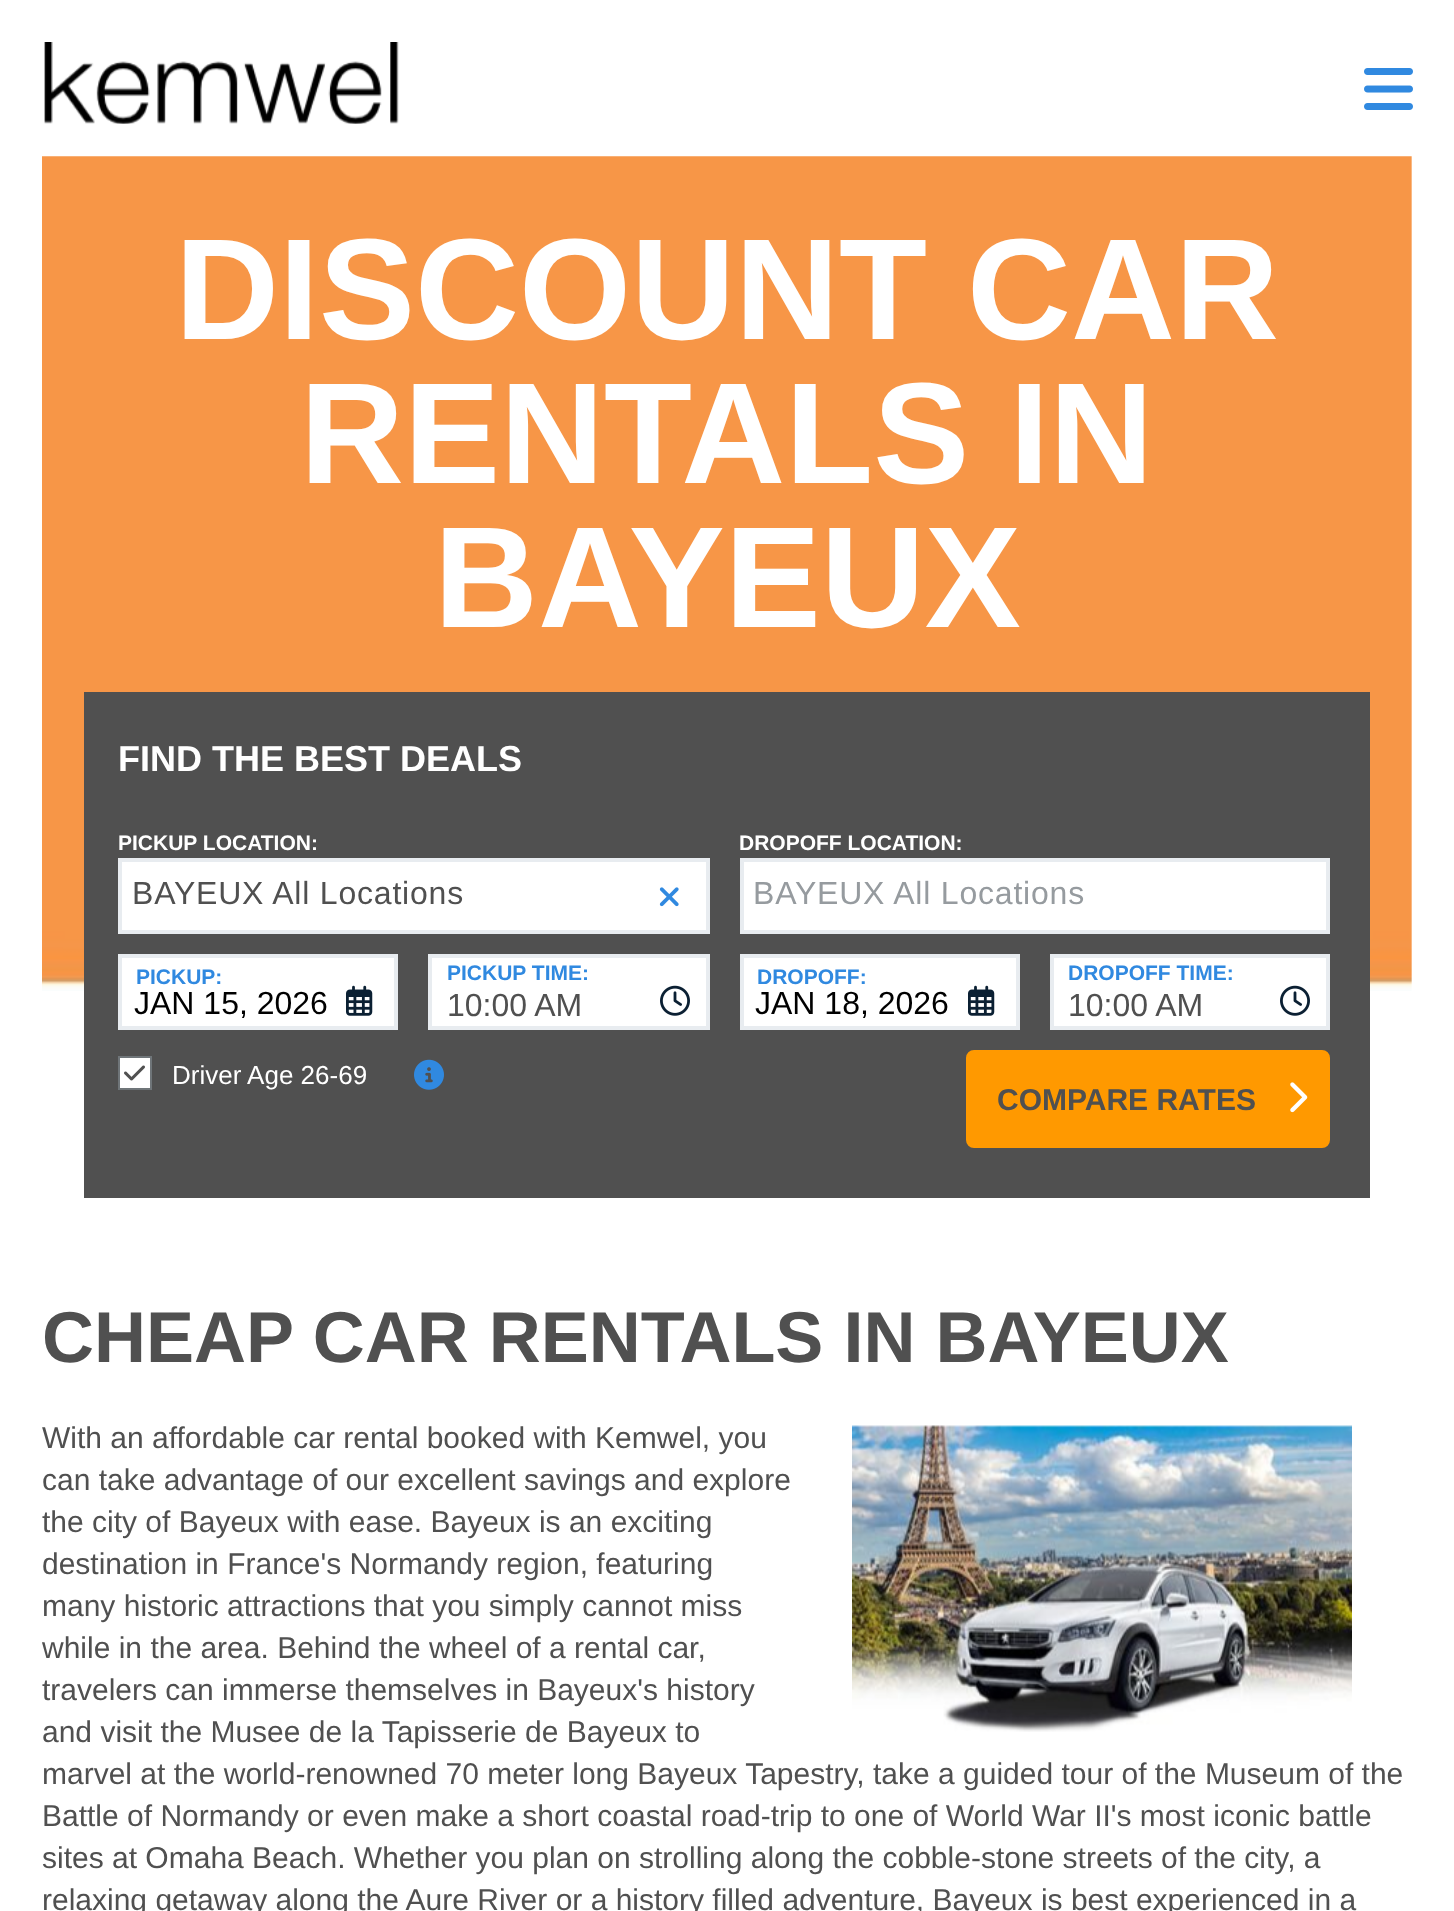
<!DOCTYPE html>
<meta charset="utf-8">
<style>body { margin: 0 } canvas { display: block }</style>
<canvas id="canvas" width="1454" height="1911"></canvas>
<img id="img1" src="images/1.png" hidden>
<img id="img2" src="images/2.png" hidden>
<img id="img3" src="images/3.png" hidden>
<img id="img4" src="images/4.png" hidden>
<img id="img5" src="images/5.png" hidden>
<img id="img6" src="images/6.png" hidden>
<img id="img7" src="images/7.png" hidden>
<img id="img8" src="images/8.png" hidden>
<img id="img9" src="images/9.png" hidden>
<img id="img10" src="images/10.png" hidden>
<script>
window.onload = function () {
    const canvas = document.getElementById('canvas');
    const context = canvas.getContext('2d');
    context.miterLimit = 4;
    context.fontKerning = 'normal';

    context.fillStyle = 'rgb(255, 255, 255)';
    context.fillRect(0, 0, 1454, 1911);
    context.drawImage(document.getElementById('img1'), 44, 42, 355, 82);
    context.drawImage(document.getElementById('img2'), 1364, 68, 49, 42);
    context.drawImage(document.getElementById('img3'), 42, 156, 1370, 835);
    context.fillStyle = 'rgb(80, 80, 80)';
    context.fillRect(84, 692, 1286, 506);
    context.fillStyle = 'rgb(255, 255, 255)';
    context.beginPath();
    context.rect(120, 860, 588, 72);
    context.fill();
    context.strokeStyle = 'rgb(232, 236, 240)';
    context.lineWidth = 4;
    context.stroke();
    context.drawImage(document.getElementById('img4'), 659, 887, 20, 20);
    context.beginPath();
    context.rect(742, 860, 586, 72);
    context.fill();
    context.stroke();
    context.beginPath();
    context.rect(120, 956, 276, 72);
    context.fill();
    context.stroke();
    context.drawImage(document.getElementById('img5'), 346, 985, 27, 31);
    context.beginPath();
    context.rect(430, 956, 278, 72);
    context.fill();
    context.stroke();
    context.drawImage(document.getElementById('img6'), 660, 985, 30, 31);
    context.beginPath();
    context.rect(742, 956, 276, 72);
    context.fill();
    context.stroke();
    context.drawImage(document.getElementById('img5'), 968, 985, 27, 31);
    context.beginPath();
    context.rect(1052, 956, 276, 72);
    context.fill();
    context.stroke();
    context.drawImage(document.getElementById('img6'), 1280, 985, 30, 31);
    context.beginPath();
    context.rect(119, 1057, 32, 32);
    context.fill();
    context.strokeStyle = 'rgb(111, 117, 121)';
    context.lineWidth = 2;
    context.stroke();
    context.drawImage(document.getElementById('img7'), 124, 1065, 21, 16);
    context.drawImage(document.getElementById('img8'), 414, 1059, 30, 31);
    context.fillStyle = 'rgb(255, 153, 0)';
    context.beginPath();
    context.roundRect(967, 1051, 362, 96, 7);
    context.fill();
    context.strokeStyle = 'rgb(255, 153, 0)';
    context.stroke();
    context.drawImage(document.getElementById('img9'), 1290, 1082, 18, 31);
    context.drawImage(document.getElementById('img10'), 852, 1425, 500, 307);
    context.font = 'bold 144px Liberation Sans';
    context.fillStyle = 'rgb(255, 255, 255)';
    context.fillText('DISCOUNT CAR', 175, 339);
    context.fillText('RENTALS IN', 300, 483);
    context.fillText('BAYEUX', 434, 627);
    context.font = 'bold 36px Liberation Sans';
    context.fillText('FIND THE BEST DEALS', 118, 771);
    context.font = 'bold 21px Liberation Sans';
    context.fillText('PICKUP LOCATION:', 118, 850);
    context.letterSpacing = '0.8px';
    context.font = '32px Liberation Sans';
    context.fillStyle = 'rgb(80, 80, 80)';
    context.fillText('BAYEUX All Locations', 132, 904);
    context.letterSpacing = '0px';
    context.font = 'bold 21px Liberation Sans';
    context.fillStyle = 'rgb(255, 255, 255)';
    context.fillText('DROPOFF LOCATION:', 739, 850);
    context.letterSpacing = '0.8px';
    context.font = '32px Liberation Sans';
    context.fillStyle = 'rgb(150, 155, 159)';
    context.fillText('BAYEUX All Locations', 753, 904);
    context.letterSpacing = '0px';
    context.font = 'bold 21px Liberation Sans';
    context.fillStyle = 'rgb(48, 137, 224)';
    context.fillText('PICKUP:', 136, 984);
    context.font = '32px Liberation Sans';
    context.fillStyle = 'rgb(0, 0, 0)';
    context.fillText('JAN 15, 2026', 134, 1014);
    context.font = 'bold 21px Liberation Sans';
    context.fillStyle = 'rgb(48, 137, 224)';
    context.fillText('PICKUP TIME:', 447, 980);
    context.font = '32px Liberation Sans';
    context.fillStyle = 'rgb(80, 80, 80)';
    context.fillText('10:00 AM', 447, 1016);
    context.font = 'bold 21px Liberation Sans';
    context.fillStyle = 'rgb(48, 137, 224)';
    context.fillText('DROPOFF:', 757, 984);
    context.font = '32px Liberation Sans';
    context.fillStyle = 'rgb(0, 0, 0)';
    context.fillText('JAN 18, 2026', 755, 1014);
    context.font = 'bold 21px Liberation Sans';
    context.fillStyle = 'rgb(48, 137, 224)';
    context.fillText('DROPOFF TIME:', 1068, 980);
    context.font = '32px Liberation Sans';
    context.fillStyle = 'rgb(80, 80, 80)';
    context.fillText('10:00 AM', 1068, 1016);
    context.font = '26px Liberation Sans';
    context.fillStyle = 'rgb(255, 255, 255)';
    context.fillText('Driver Age 26-69', 172, 1084);
    context.font = 'bold 30px Liberation Sans';
    context.fillStyle = 'rgb(80, 80, 80)';
    context.fillText('COMPARE RATES', 997, 1110);
    context.font = 'bold 72px Liberation Sans';
    context.fillText('CHEAP CAR RENTALS IN BAYEUX', 42, 1362);
    context.font = '30px Liberation Sans';
    context.fillText('With an affordable car rental booked with Kemwel, you', 42, 1448);
    context.fillText('can take advantage of our excellent savings and explore', 42, 1490);
    context.fillText('the city of Bayeux with ease. Bayeux is an exciting', 42, 1532);
    context.fillText('destination in France\'s Normandy region, featuring', 42, 1574);
    context.fillText('many historic attractions that you simply cannot miss', 42, 1616);
    context.fillText('while in the area. Behind the wheel of a rental car,', 42, 1658);
    context.fillText('travelers can immerse themselves in Bayeux\'s history', 42, 1700);
    context.fillText('and visit the Musee de la Tapisserie de Bayeux to', 42, 1742);
    context.fillText('marvel at the world-renowned 70 meter long Bayeux Tapestry, take a guided tour of the Museum of the', 42, 1784);
    context.fillText('Battle of Normandy or even make a short coastal road-trip to one of World War II\'s most iconic battle', 42, 1826);
    context.fillText('sites at Omaha Beach. Whether you plan on strolling along the cobble-stone streets of the city, a', 42, 1868);
    context.fillText('relaxing getaway along the Aure River or a history filled adventure, Bayeux is best experienced in a', 42, 1910);
};
</script>
